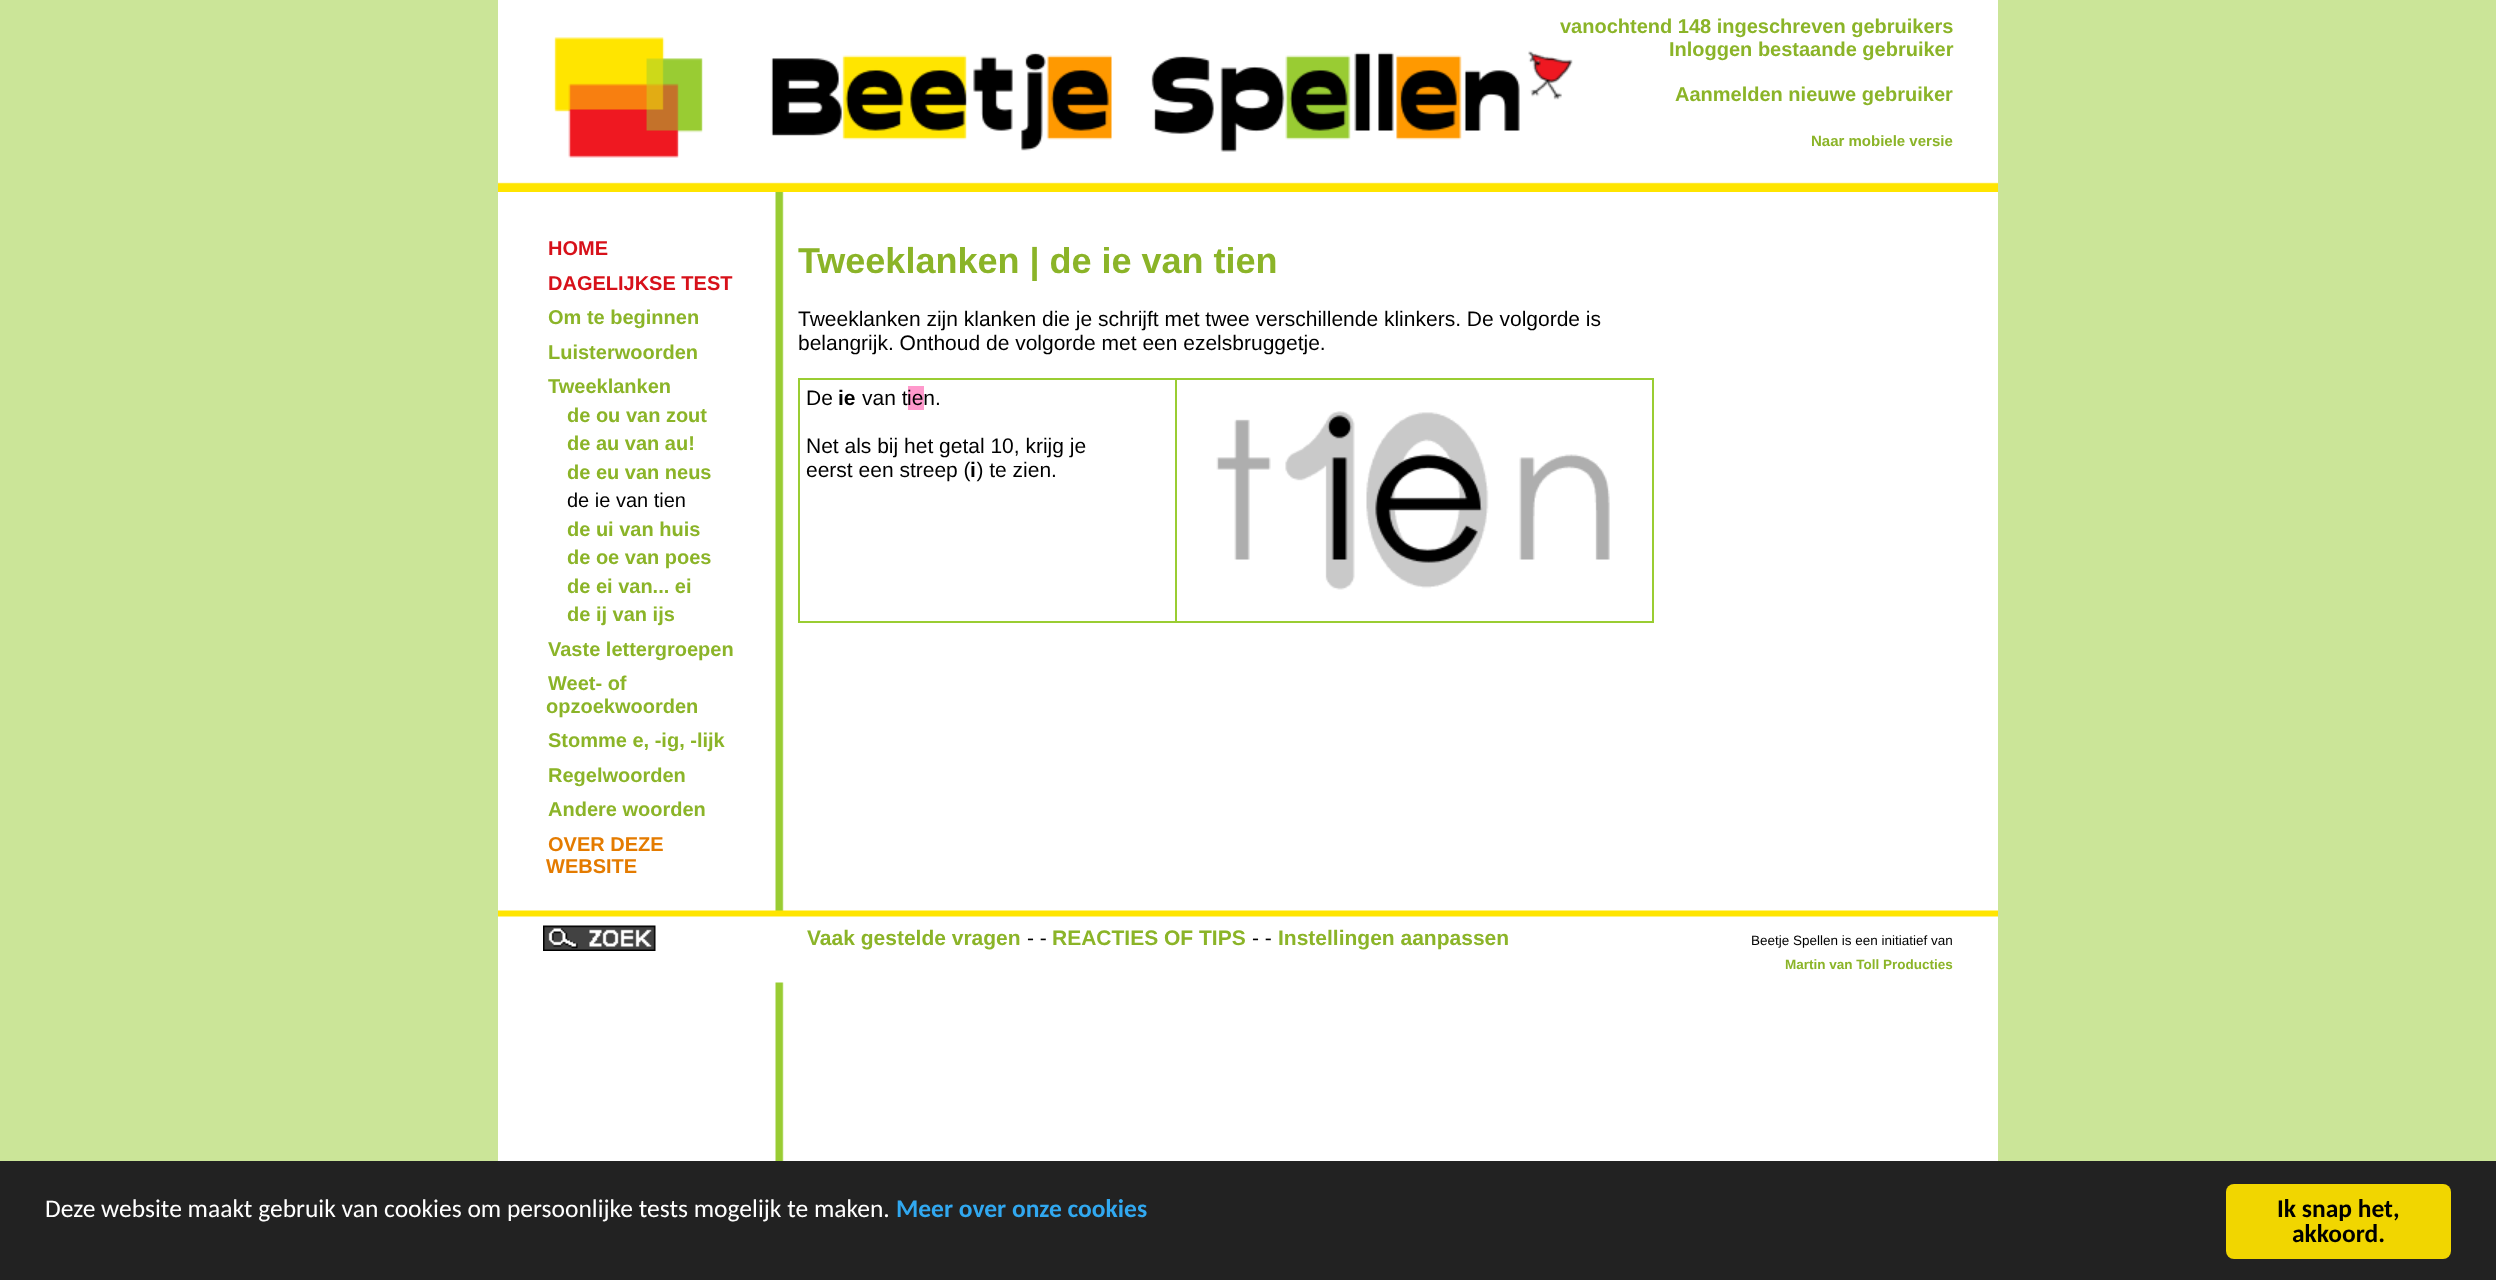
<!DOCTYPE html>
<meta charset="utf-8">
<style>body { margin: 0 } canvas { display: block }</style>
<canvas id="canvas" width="2496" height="1280"></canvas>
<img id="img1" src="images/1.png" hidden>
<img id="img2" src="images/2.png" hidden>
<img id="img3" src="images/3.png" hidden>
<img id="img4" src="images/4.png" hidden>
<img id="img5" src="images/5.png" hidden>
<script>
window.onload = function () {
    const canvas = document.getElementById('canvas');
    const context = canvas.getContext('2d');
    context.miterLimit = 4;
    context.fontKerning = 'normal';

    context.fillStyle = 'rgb(203, 229, 152)';
    context.fillRect(0, 0, 2496, 1280);
    context.fillStyle = 'rgb(255, 255, 255)';
    context.fillRect(498, 192, 1500, 969);
    context.drawImage(document.getElementById('img1'), 775, 192, 9, 969);
    context.fillRect(498, 0, 1500, 37);
    context.drawImage(document.getElementById('img2'), 498, 37, 1500, 155);
    context.fillStyle = 'rgb(154, 205, 50)';
    context.fillRect(798, 378, 855, 2);
    context.fillRect(1652, 378, 2, 245);
    context.fillRect(798, 621, 855, 2);
    context.fillRect(798, 378, 2, 245);
    context.fillStyle = 'rgb(255, 153, 204)';
    context.fillRect(908, 386, 16, 24);
    context.fillStyle = 'rgb(154, 205, 50)';
    context.fillRect(1175, 378, 2, 245);
    context.drawImage(document.getElementById('img3'), 1216, 411, 394, 179);
    context.drawImage(document.getElementById('img4'), 498, 910, 1500, 73);
    context.drawImage(document.getElementById('img5'), 543, 925, 113, 26);
    context.fillStyle = 'rgb(34, 34, 34)';
    context.fillRect(0, 1161, 2496, 119);
    context.fillStyle = 'rgb(241, 214, 0)';
    context.beginPath();
    context.roundRect(2226, 1184, 225, 75, 8);
    context.fill();
    context.font = 'bold 20px Liberation Sans';
    context.fillStyle = 'rgb(139, 180, 40)';
    context.fillText('vanochtend 148 ingeschreven gebruikers', 1560, 33);
    context.fillText('Inloggen bestaande gebruiker', 1669, 56);
    context.fillText('Aanmelden nieuwe gebruiker', 1675, 101);
    context.font = 'bold 15px Liberation Sans';
    context.fillText('Naar mobiele versie', 1811, 146);
    context.font = 'bold 20px Liberation Sans';
    context.fillStyle = 'rgb(215, 17, 26)';
    context.fillText('HOME', 548, 255);
    context.fillText('DAGELIJKSE TEST', 548, 290);
    context.fillStyle = 'rgb(139, 180, 40)';
    context.fillText('Om te beginnen', 548, 324);
    context.fillText('Luisterwoorden', 548, 359);
    context.fillText('Tweeklanken', 548, 393);
    context.fillText('de ou van zout', 567, 422);
    context.fillText('de au van au!', 567, 450);
    context.fillText('de eu van neus', 567, 479);
    context.font = '20px Liberation Sans';
    context.fillStyle = 'rgb(0, 0, 0)';
    context.fillText('de ie van tien', 567, 507);
    context.font = 'bold 20px Liberation Sans';
    context.fillStyle = 'rgb(139, 180, 40)';
    context.fillText('de ui van huis', 567, 536);
    context.fillText('de oe van poes', 567, 564);
    context.fillText('de ei van... ei', 567, 593);
    context.fillText('de ij van ijs', 567, 621);
    context.fillText('Vaste lettergroepen', 548, 656);
    context.fillText('Weet- of', 548, 690);
    context.fillText('opzoekwoorden', 546, 713);
    context.fillText('Stomme e, -ig, -lijk', 548, 747);
    context.fillText('Regelwoorden', 548, 782);
    context.fillText('Andere woorden', 548, 816);
    context.fillStyle = 'rgb(228, 123, 0)';
    context.fillText('OVER DEZE', 548, 851);
    context.fillText('WEBSITE', 546, 873);
    context.font = 'bold 36px Liberation Sans';
    context.fillStyle = 'rgb(139, 180, 40)';
    context.fillText('Tweeklanken | de ie van tien', 798, 273);
    context.font = '21px Liberation Sans';
    context.fillStyle = 'rgb(0, 0, 0)';
    context.fillText('Tweeklanken zijn klanken die je schrijft met twee verschillende klinkers. De volgorde is', 798, 326);
    context.fillText('belangrijk. Onthoud de volgorde met een ezelsbruggetje.', 798, 350);
    context.fillText('De', 806, 405);
    context.font = 'bold 21px Liberation Sans';
    context.fillText('ie', 838, 405);
    context.font = '21px Liberation Sans';
    context.fillText('van t', 862, 405);
    context.fillText('ien.', 907, 405);
    context.fillText('Net als bij het getal 10, krijg je', 806, 453);
    context.fillText('eerst een streep ( ) te zien.', 806, 477);
    context.font = 'bold 21px Liberation Sans';
    context.fillText('i', 970, 477);
    context.fillStyle = 'rgb(139, 180, 40)';
    context.fillText('Vaak gestelde vragen', 807, 945);
    context.font = '21px Liberation Sans';
    context.fillStyle = 'rgb(0, 0, 0)';
    context.fillText('- -', 1027, 945);
    context.font = 'bold 21px Liberation Sans';
    context.fillStyle = 'rgb(139, 180, 40)';
    context.fillText('REACTIES OF TIPS', 1052, 945);
    context.font = '21px Liberation Sans';
    context.fillStyle = 'rgb(0, 0, 0)';
    context.fillText('- -', 1252, 945);
    context.font = 'bold 21px Liberation Sans';
    context.fillStyle = 'rgb(139, 180, 40)';
    context.fillText('Instellingen aanpassen', 1278, 945);
    context.font = '13.5px Liberation Sans';
    context.fillStyle = 'rgb(0, 0, 0)';
    context.fillText('Beetje Spellen is een initiatief van', 1751, 945);
    context.font = 'bold 13.5px Liberation Sans';
    context.fillStyle = 'rgb(139, 180, 40)';
    context.fillText('Martin van Toll Producties', 1785, 969);
    context.font = '25.5px Carlito';
    context.fillStyle = 'rgb(255, 255, 255)';
    context.fillText('Deze website maakt gebruik van cookies om persoonlijke tests mogelijk te maken.', 45, 1217);
    context.font = 'bold 25.5px Carlito';
    context.fillStyle = 'rgb(49, 168, 240)';
    context.fillText('Meer over onze cookies', 896, 1217);
    context.fillStyle = 'rgb(0, 0, 0)';
    context.fillText('Ik snap het,', 2277, 1217);
    context.fillText('akkoord.', 2292, 1242);
};
</script>
